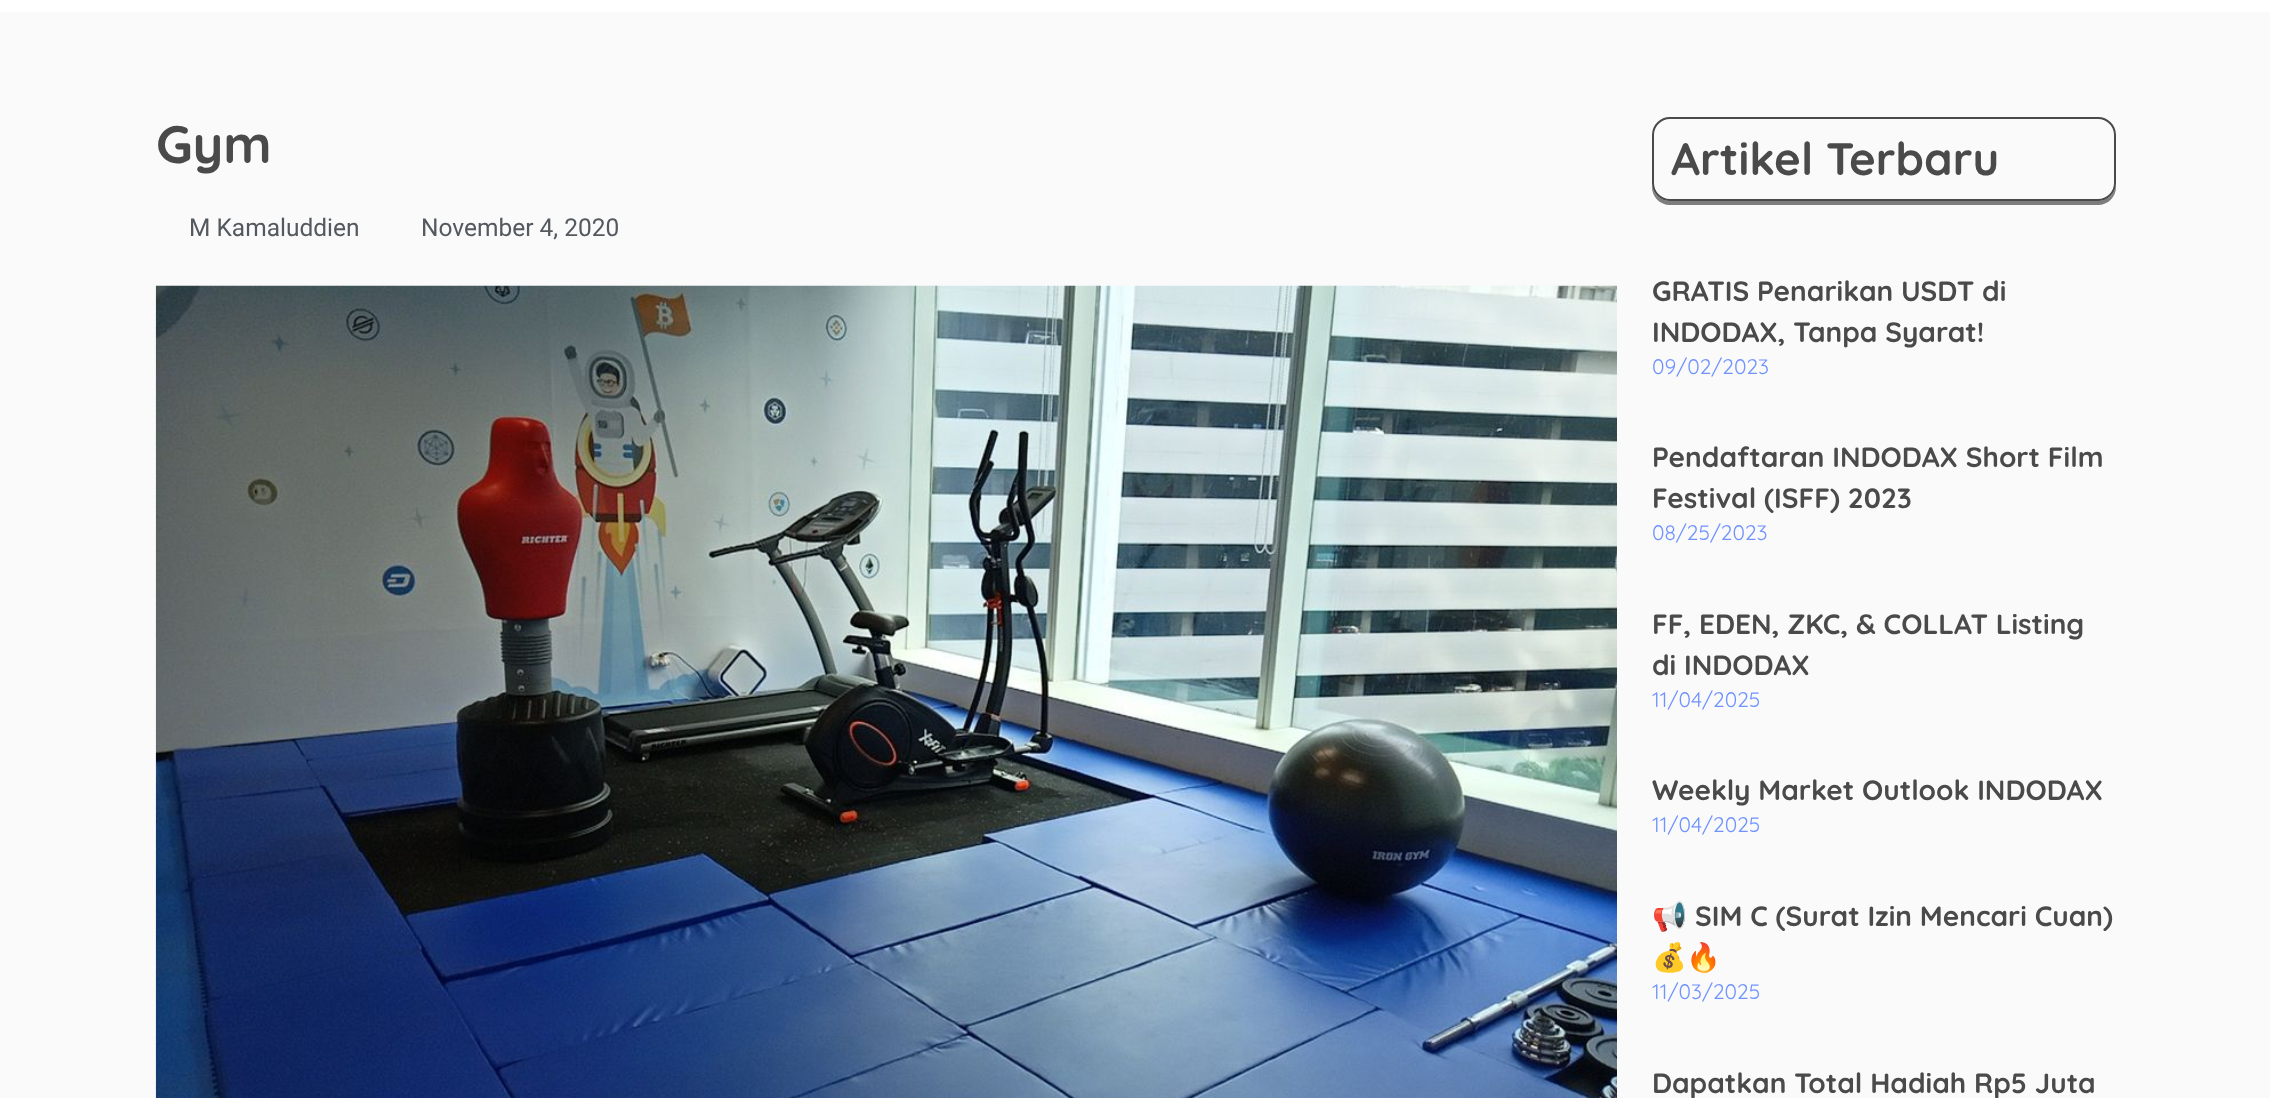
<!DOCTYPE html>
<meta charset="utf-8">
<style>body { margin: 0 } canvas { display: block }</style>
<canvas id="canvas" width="2270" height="1098"></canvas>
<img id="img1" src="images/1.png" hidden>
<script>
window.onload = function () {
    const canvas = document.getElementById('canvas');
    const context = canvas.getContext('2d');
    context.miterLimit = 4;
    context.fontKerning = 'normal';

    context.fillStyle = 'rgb(255, 255, 255)';
    context.fillRect(0, 0, 2270, 1098);
    context.fillStyle = 'rgb(250, 250, 250)';
    context.fillRect(0, 12, 2270, 1086);
    context.drawImage(document.getElementById('img1'), 155, 285, 1462, 813);
    context.fillStyle = 'rgb(125, 125, 125)';
    context.beginPath();
    context.moveTo(1652, 184);
    context.lineTo(1652, 187);
    context.bezierCurveTo(1652, 197, 1660, 205, 1670, 205);
    context.lineTo(2098, 205);
    context.bezierCurveTo(2108, 205, 2116, 197, 2116, 187);
    context.lineTo(2116, 136);
    context.lineTo(2116, 184);
    context.bezierCurveTo(2116, 193, 2108, 201, 2098, 201);
    context.lineTo(1670, 201);
    context.bezierCurveTo(1660, 201, 1652, 193, 1652, 184);
    context.closePath();
    context.fill();
    context.beginPath();
    context.roundRect(1653, 118, 462, 82, 17);
    context.strokeStyle = 'rgb(74, 74, 74)';
    context.lineWidth = 2;
    context.stroke();
    context.font = 'bold 52.5px Quicksand';
    context.fillStyle = 'rgb(74, 74, 74)';
    context.fillText('Gym', 156, 163);
    context.font = '24.5px Roboto';
    context.fillStyle = 'rgb(84, 89, 95)';
    context.fillText('M Kamaluddien', 189, 236);
    context.fillText('November 4, 2020', 421, 236);
    context.font = 'bold 45.5px Quicksand';
    context.fillStyle = 'rgb(74, 74, 74)';
    context.fillText('Artikel Terbaru', 1671, 175);
    context.font = 'bold 28px Quicksand';
    context.fillText('GRATIS Penarikan USDT di', 1652, 301);
    context.fillText('INDODAX, Tanpa Syarat!', 1652, 342);
    context.font = '21px Quicksand';
    context.fillStyle = 'rgb(112, 147, 255)';
    context.fillText('09/02/2023', 1652, 374);
    context.font = 'bold 28px Quicksand';
    context.fillStyle = 'rgb(74, 74, 74)';
    context.fillText('Pendaftaran INDODAX Short Film', 1652, 467);
    context.fillText('Festival (ISFF) 2023', 1652, 508);
    context.font = '21px Quicksand';
    context.fillStyle = 'rgb(112, 147, 255)';
    context.fillText('08/25/2023', 1652, 540);
    context.font = 'bold 28px Quicksand';
    context.fillStyle = 'rgb(74, 74, 74)';
    context.fillText('FF, EDEN, ZKC, & COLLAT Listing', 1652, 634);
    context.fillText('di INDODAX', 1652, 675);
    context.font = '21px Quicksand';
    context.fillStyle = 'rgb(112, 147, 255)';
    context.fillText('11/04/2025', 1652, 707);
    context.font = 'bold 28px Quicksand';
    context.fillStyle = 'rgb(74, 74, 74)';
    context.fillText('Weekly Market Outlook INDODAX', 1652, 800);
    context.font = '21px Quicksand';
    context.fillStyle = 'rgb(112, 147, 255)';
    context.fillText('11/04/2025', 1652, 832);
    context.font = 'bold 28px Noto Color Emoji';
    context.fillStyle = 'rgb(74, 74, 74)';
    context.fillText('📢', 1652, 926);
    context.font = 'bold 28px Quicksand';
    context.fillText('SIM C (Surat Izin Mencari Cuan)', 1695, 926);
    context.font = 'bold 28px Noto Color Emoji';
    context.fillText('💰🔥', 1652, 967);
    context.font = '21px Quicksand';
    context.fillStyle = 'rgb(112, 147, 255)';
    context.fillText('11/03/2025', 1652, 999);
    context.font = 'bold 28px Quicksand';
    context.fillStyle = 'rgb(74, 74, 74)';
    context.fillText('Dapatkan Total Hadiah Rp5 Juta', 1652, 1093);
};
</script>
